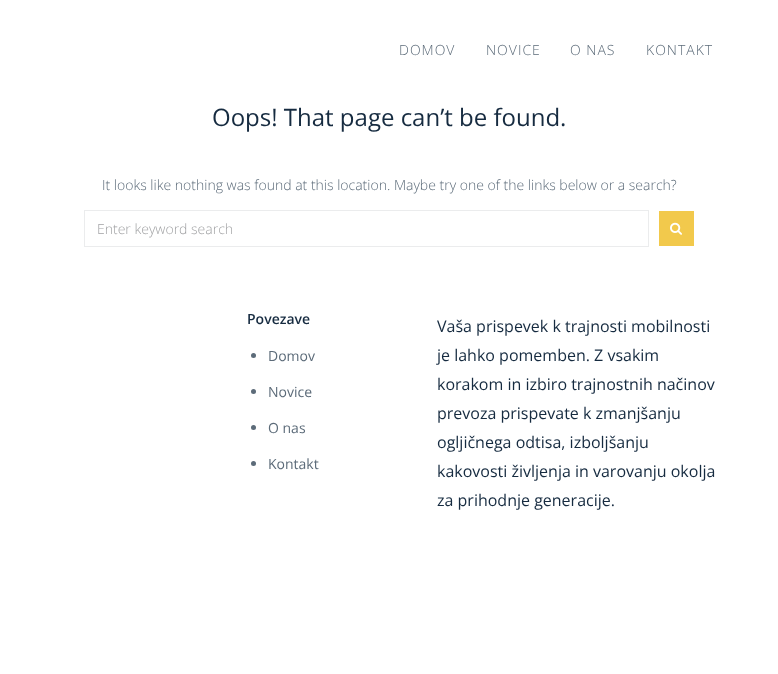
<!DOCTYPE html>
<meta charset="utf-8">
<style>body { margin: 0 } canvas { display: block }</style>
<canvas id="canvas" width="778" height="674"></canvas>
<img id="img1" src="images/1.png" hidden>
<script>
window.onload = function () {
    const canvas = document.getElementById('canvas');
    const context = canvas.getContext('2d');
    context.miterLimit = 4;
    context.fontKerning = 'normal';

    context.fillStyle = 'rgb(255, 255, 255)';
    context.fillRect(0, 0, 778, 674);
    context.strokeStyle = 'rgb(235, 236, 237)';
    context.strokeRect(84.5, 210.5, 564, 36);
    context.fillStyle = 'rgb(242, 201, 76)';
    context.fillRect(659, 211, 35, 35);
    context.drawImage(document.getElementById('img1'), 670, 222, 12, 13);
    context.fillStyle = 'rgb(92, 107, 121)';
    context.beginPath();
    context.arc(253.5, 355.5, 2.5, 0, 2 * Math.PI);
    context.fill();
    context.beginPath();
    context.arc(253.5, 391.5, 2.5, 0, 2 * Math.PI);
    context.fill();
    context.beginPath();
    context.arc(253.5, 427.5, 2.5, 0, 2 * Math.PI);
    context.fill();
    context.beginPath();
    context.arc(253.5, 463.5, 2.5, 0, 2 * Math.PI);
    context.fill();
    context.letterSpacing = '1px';
    context.font = '300 14px Open Sans';
    context.fillText('DOMOV', 399, 55);
    context.fillText('NOVICE', 486, 55);
    context.fillText('O NAS', 570, 55);
    context.fillText('KONTAKT', 646, 55);
    context.letterSpacing = '0px';
    context.font = '24px Open Sans';
    context.fillStyle = 'rgb(22, 43, 64)';
    context.fillText('Oops! That page can’t be found.', 212, 126);
    context.font = '300 14px Open Sans';
    context.fillStyle = 'rgb(92, 107, 121)';
    context.fillText('It looks like nothing was found at this location. Maybe try one of the links below or a search?', 102, 190);
    context.fillStyle = 'rgb(161, 162, 164)';
    context.fillText('Enter keyword search', 97, 234);
    context.font = '600 14px Open Sans';
    context.fillStyle = 'rgb(22, 43, 64)';
    context.fillText('Povezave', 247, 324);
    context.font = '14px Open Sans';
    context.fillStyle = 'rgb(92, 107, 121)';
    context.fillText('Domov', 268, 361);
    context.fillText('Novice', 268, 397);
    context.fillText('O nas', 268, 433);
    context.fillText('Kontakt', 268, 469);
    context.font = '16px Open Sans';
    context.fillStyle = 'rgb(22, 43, 64)';
    context.fillText('Vaša prispevek k trajnosti mobilnosti', 437, 332);
    context.fillText('je lahko pomemben. Z vsakim', 437, 361);
    context.fillText('korakom in izbiro trajnostnih načinov', 437, 390);
    context.fillText('prevoza prispevate k zmanjšanju', 437, 419);
    context.fillText('ogljičnega odtisa, izboljšanju', 437, 448);
    context.fillText('kakovosti življenja in varovanju okolja', 437, 477);
    context.fillText('za prihodnje generacije.', 437, 506);
};
</script>
